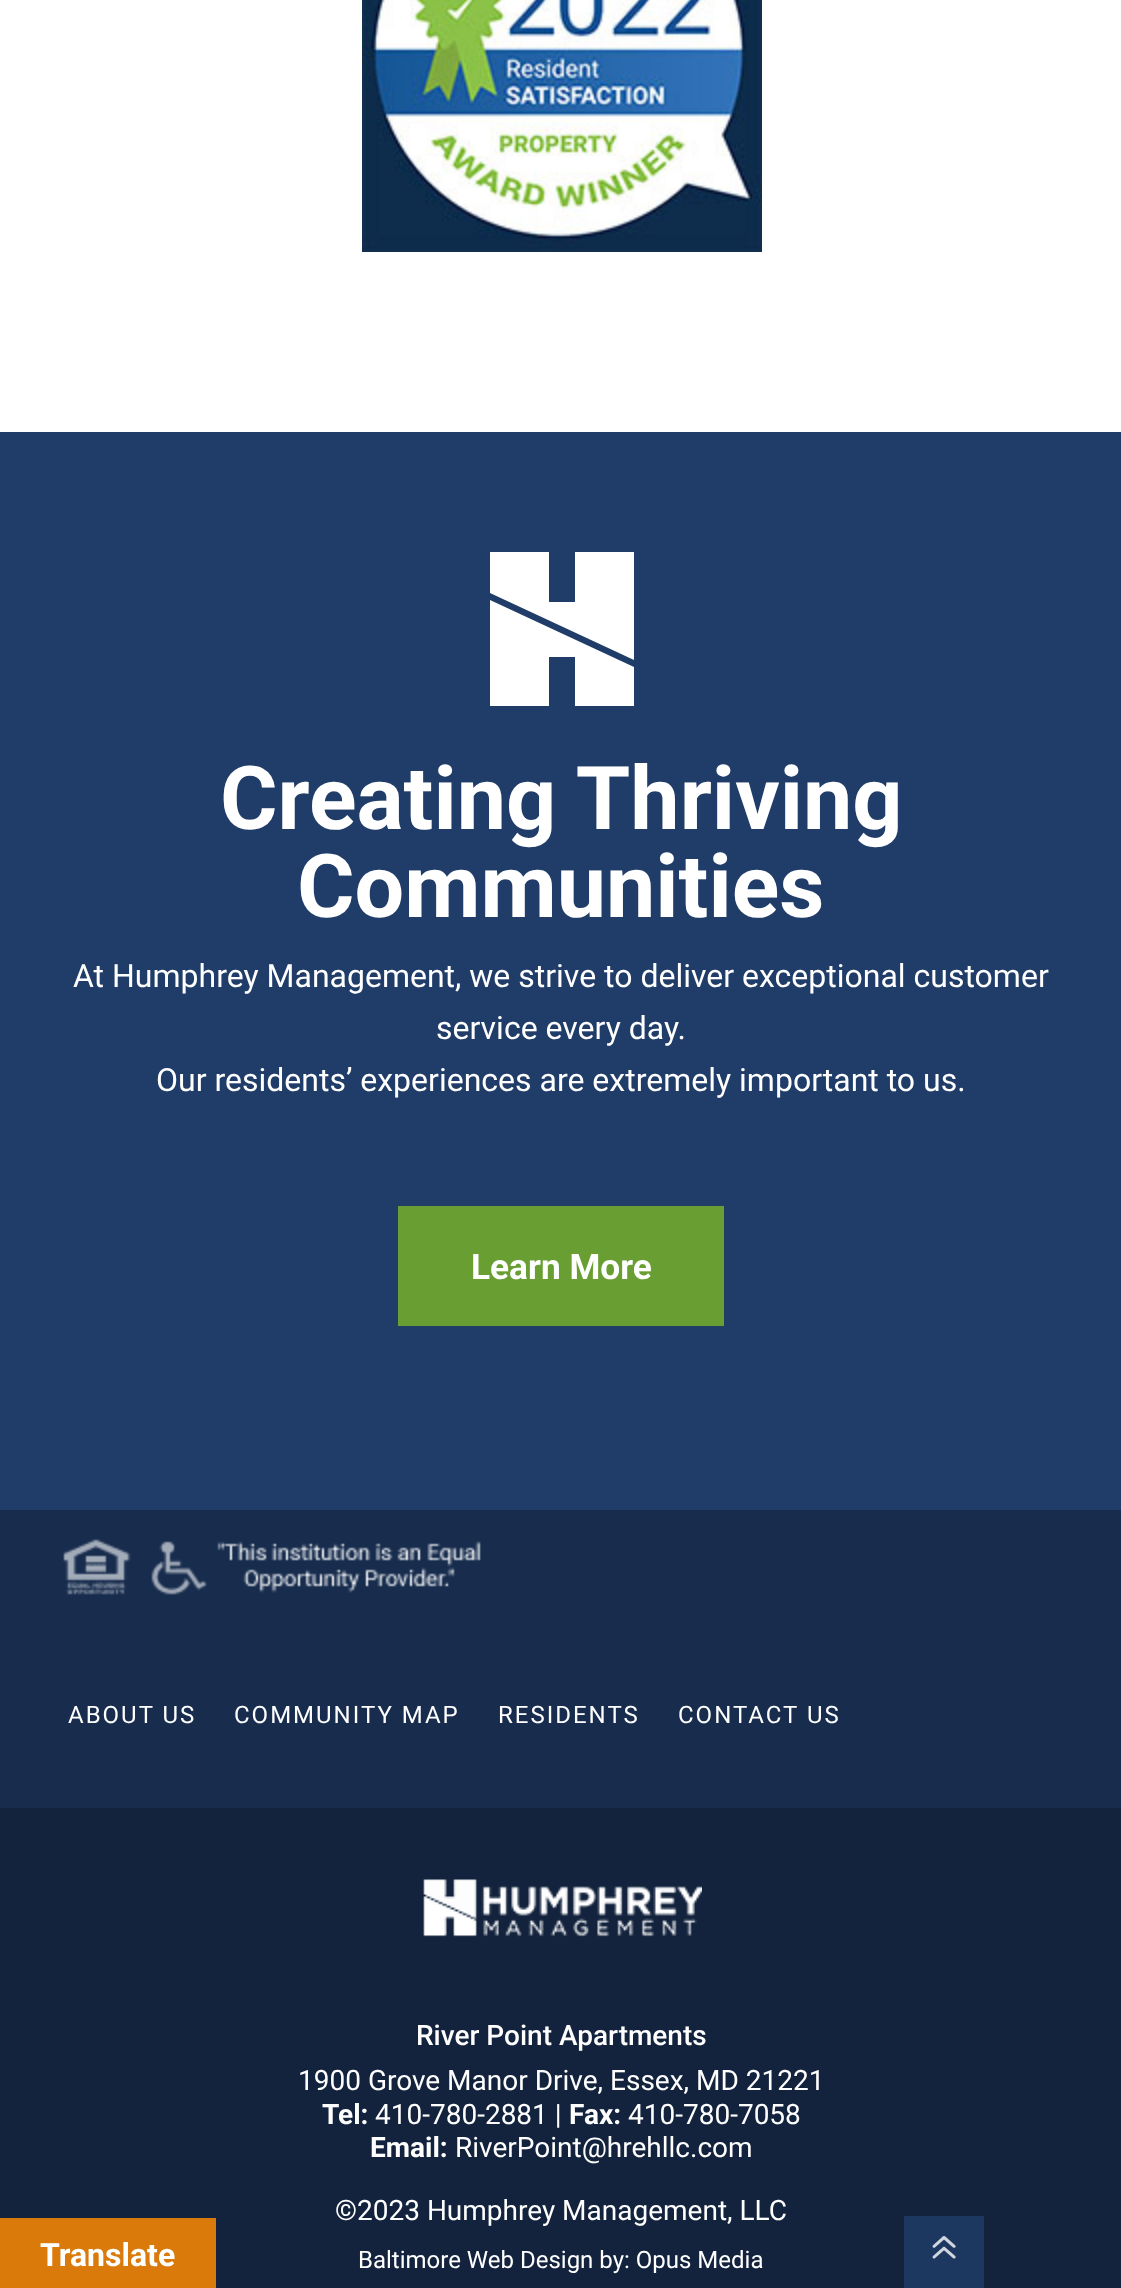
<!DOCTYPE html>
<meta charset="utf-8">
<style>body { margin: 0 } canvas { display: block }</style>
<canvas id="canvas" width="1121" height="2288"></canvas>
<img id="img1" src="images/1.png" hidden>
<img id="img2" src="images/2.png" hidden>
<img id="img3" src="images/3.png" hidden>
<img id="img4" src="images/4.png" hidden>
<script>
window.onload = function () {
    const canvas = document.getElementById('canvas');
    const context = canvas.getContext('2d');
    context.miterLimit = 4;
    context.fontKerning = 'normal';

    context.fillStyle = 'rgb(255, 255, 255)';
    context.fillRect(0, 0, 1121, 2288);
    context.drawImage(document.getElementById('img1'), 362, 0, 400, 252);
    context.fillStyle = 'rgb(32, 61, 105)';
    context.fillRect(0, 432, 1121, 1078);
    context.fillStyle = 'rgb(255, 255, 255)';
    context.beginPath();
    context.moveTo(490, 600);
    context.lineTo(490, 706);
    context.lineTo(549, 706);
    context.lineTo(549, 657);
    context.lineTo(575, 657);
    context.lineTo(575, 706);
    context.lineTo(634, 706);
    context.lineTo(634, 667);
    context.closePath();
    context.fill();
    context.beginPath();
    context.moveTo(575, 552);
    context.lineTo(575, 602);
    context.lineTo(549, 602);
    context.lineTo(549, 552);
    context.lineTo(490, 552);
    context.lineTo(490, 593);
    context.lineTo(634, 660);
    context.lineTo(634, 552);
    context.closePath();
    context.fill();
    context.fillStyle = 'rgb(105, 159, 50)';
    context.fillRect(398, 1206, 326, 120);
    context.fillStyle = 'rgb(24, 45, 78)';
    context.fillRect(0, 1510, 1121, 298);
    context.drawImage(document.getElementById('img2'), 63, 1539, 418, 56);
    context.fillStyle = 'rgb(19, 35, 61)';
    context.fillRect(0, 1808, 1121, 480);
    context.drawImage(document.getElementById('img3'), 423, 1879, 279, 58);
    context.fillStyle = 'rgb(29, 56, 96)';
    context.fillRect(904, 2216, 80, 72);
    context.drawImage(document.getElementById('img4'), 932, 2236, 24, 23);
    context.fillStyle = 'rgb(218, 122, 11)';
    context.fillRect(0, 2218, 216, 70);
    context.font = 'bold 88px Roboto';
    context.fillStyle = 'rgb(255, 255, 255)';
    context.fillText('Creating Thriving', 220, 829);
    context.fillText('Communities', 297, 917);
    context.font = '32px Roboto';
    context.fillText('At Humphrey Management, we strive to deliver exceptional customer', 73, 987);
    context.fillText('service every day.', 436, 1039);
    context.fillText('Our residents’ experiences are extremely important to us.', 156, 1091);
    context.font = 'bold 35.25px Roboto';
    context.fillText('Learn More', 471, 1279);
    context.letterSpacing = '2px';
    context.font = '24px Roboto';
    context.fillText('ABOUT US', 68, 1723);
    context.fillText('COMMUNITY MAP', 234, 1723);
    context.fillText('RESIDENTS', 498, 1723);
    context.fillText('CONTACT US', 678, 1723);
    context.letterSpacing = '0px';
    context.font = '500 28px Roboto';
    context.fillText('River Point Apartments', 416, 2045);
    context.font = '28px Roboto';
    context.fillText('1900 Grove Manor Drive, Essex, MD 21221', 298, 2090);
    context.font = 'bold 28px Roboto';
    context.fillText('Tel:', 322, 2124);
    context.font = '28px Roboto';
    context.fillText('410-780-2881 |', 375, 2124);
    context.font = 'bold 28px Roboto';
    context.fillText('Fax:', 569, 2124);
    context.font = '28px Roboto';
    context.fillText('410-780-7058', 628, 2124);
    context.font = 'bold 28px Roboto';
    context.fillText('Email:', 370, 2157);
    context.font = '28px Roboto';
    context.fillText('RiverPoint@hrehllc.com', 455, 2157);
    context.fillText('©2023 Humphrey Management, LLC', 335, 2220);
    context.font = '24px Roboto';
    context.fillText('Baltimore Web Design by: Opus Media', 358, 2268);
    context.font = 'bold 32px Roboto';
    context.fillText('Translate', 40, 2266);
};
</script>
